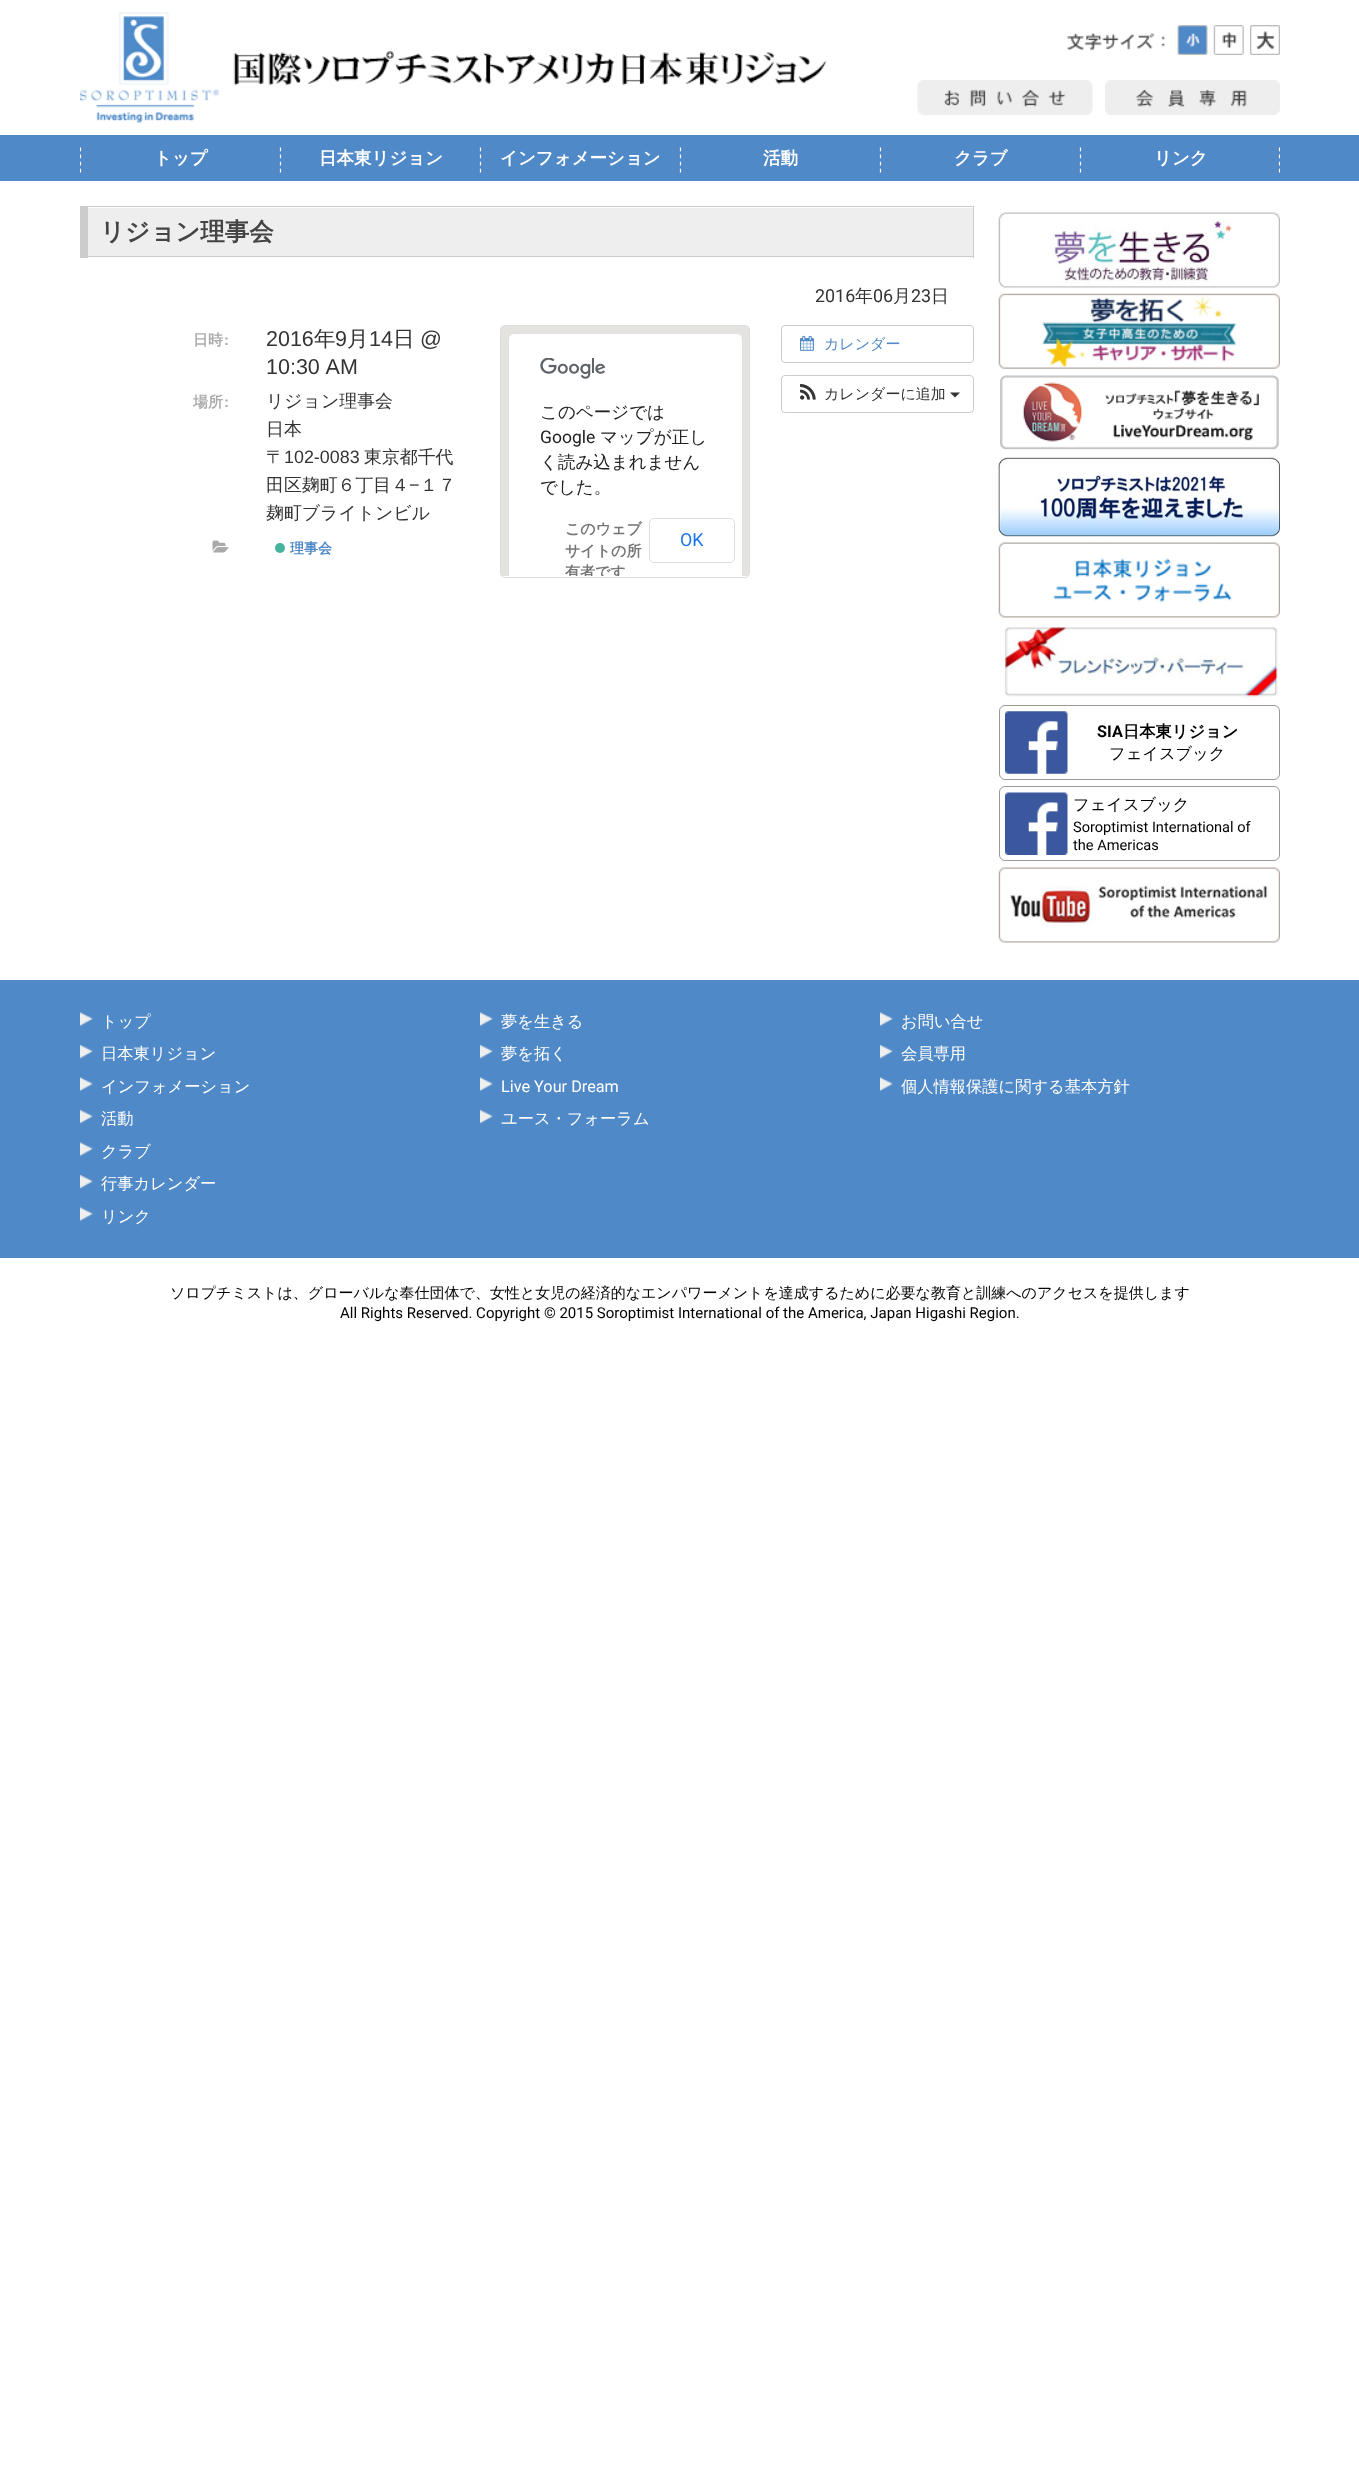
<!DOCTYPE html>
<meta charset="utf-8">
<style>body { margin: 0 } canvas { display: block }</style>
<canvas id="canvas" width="1359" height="2476"></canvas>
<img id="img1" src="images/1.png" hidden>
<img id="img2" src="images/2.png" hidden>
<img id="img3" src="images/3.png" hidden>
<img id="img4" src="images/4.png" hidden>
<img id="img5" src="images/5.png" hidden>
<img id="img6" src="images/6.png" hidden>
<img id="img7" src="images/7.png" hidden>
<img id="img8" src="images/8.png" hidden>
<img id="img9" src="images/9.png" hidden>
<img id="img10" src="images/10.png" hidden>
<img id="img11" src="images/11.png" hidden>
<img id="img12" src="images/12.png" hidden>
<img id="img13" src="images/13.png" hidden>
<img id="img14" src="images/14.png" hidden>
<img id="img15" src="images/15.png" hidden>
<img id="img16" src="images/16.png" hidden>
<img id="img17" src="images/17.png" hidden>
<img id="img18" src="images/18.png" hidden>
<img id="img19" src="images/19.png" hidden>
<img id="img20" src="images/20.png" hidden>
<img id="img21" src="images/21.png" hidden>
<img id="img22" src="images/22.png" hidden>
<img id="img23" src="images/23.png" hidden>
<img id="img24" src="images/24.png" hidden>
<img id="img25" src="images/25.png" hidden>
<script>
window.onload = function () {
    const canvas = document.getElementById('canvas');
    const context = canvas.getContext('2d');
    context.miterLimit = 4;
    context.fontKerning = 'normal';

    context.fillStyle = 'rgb(255, 255, 255)';
    context.fillRect(0, 0, 1359, 2476);
    context.drawImage(document.getElementById('img1'), 80, 12, 747, 111);
    context.drawImage(document.getElementById('img2'), 1067, 32, 98, 19);
    context.drawImage(document.getElementById('img3'), 1177, 25, 31, 30);
    context.drawImage(document.getElementById('img4'), 1213, 25, 31, 30);
    context.drawImage(document.getElementById('img5'), 1250, 25, 30, 30);
    context.drawImage(document.getElementById('img6'), 917, 80, 176, 35);
    context.drawImage(document.getElementById('img7'), 1105, 80, 175, 35);
    context.fillStyle = 'rgb(80, 137, 199)';
    context.fillRect(0, 135, 1359, 46);
    context.save();
    context.beginPath();
    context.rect(80, 135, 1200, 46);
    context.clip();
    context.beginPath();
    context.moveTo(80.5, 147.5);
    context.lineTo(80.5, 172.5);
    context.strokeStyle = 'rgb(255, 255, 255)';
    context.lineWidth = 1.2;
    context.setLineDash([3.75, 3.34]);
    context.stroke();
    context.restore();
    context.beginPath();
    context.moveTo(280.5, 147.5);
    context.lineTo(280.5, 172.5);
    context.strokeStyle = 'rgb(255, 255, 255)';
    context.lineWidth = 1.2;
    context.setLineDash([3.75, 3.34]);
    context.stroke();
    context.beginPath();
    context.moveTo(480.5, 147.5);
    context.lineTo(480.5, 172.5);
    context.stroke();
    context.beginPath();
    context.moveTo(680.5, 147.5);
    context.lineTo(680.5, 172.5);
    context.stroke();
    context.beginPath();
    context.moveTo(880.5, 147.5);
    context.lineTo(880.5, 172.5);
    context.stroke();
    context.beginPath();
    context.moveTo(1080.5, 147.5);
    context.lineTo(1080.5, 172.5);
    context.stroke();
    context.save();
    context.beginPath();
    context.rect(80, 135, 1200, 46);
    context.clip();
    context.beginPath();
    context.moveTo(1279.5, 147.5);
    context.lineTo(1279.5, 172.5);
    context.stroke();
    context.restore();
    context.fillStyle = 'rgb(238, 238, 238)';
    context.fillRect(88, 208, 885, 48);
    context.fillStyle = 'rgb(204, 204, 204)';
    context.fillRect(80, 206, 894, 1);
    context.fillRect(973, 206, 1, 52);
    context.fillRect(80, 256, 894, 1);
    context.fillRect(80, 206, 8, 52);
    context.drawImage(document.getElementById('img8'), 212, 540, 17, 13);
    context.fillStyle = 'rgb(69, 179, 157)';
    context.beginPath();
    context.arc(280, 548, 5, 0, 2 * Math.PI);
    context.fill();
    context.beginPath();
    context.roundRect(500.5, 325.5, 249, 252, 4.5);
    context.strokeStyle = 'rgb(221, 221, 221)';
    context.lineWidth = 1;
    context.setLineDash([]);
    context.stroke();
    context.fillStyle = 'rgb(229, 227, 223)';
    context.fillRect(501, 326, 248, 250);
    context.fillStyle = 'rgb(255, 255, 255)';
    context.beginPath();
    context.roundRect(508, 333, 235, 243, [6, 6, 0, 0]);
    context.fill();
    context.save();
    context.beginPath();
    context.rect(501, 326, 248, 250);
    context.clip();
    context.beginPath();
    context.roundRect(508.5, 333.5, 234, 301, 5.5);
    context.strokeStyle = 'rgba(0, 0, 0, 0.12)';
    context.stroke();
    context.restore();
    context.drawImage(document.getElementById('img9'), 540, 358, 65, 21);
    context.beginPath();
    context.roundRect(649.5, 518.5, 85, 44, 4.5);
    context.strokeStyle = 'rgb(218, 220, 224)';
    context.stroke();
    context.beginPath();
    context.roundRect(781.5, 325.5, 192, 37, 3.5);
    context.strokeStyle = 'rgb(204, 204, 204)';
    context.stroke();
    context.drawImage(document.getElementById('img10'), 800, 335, 14, 16);
    context.beginPath();
    context.roundRect(781.5, 375.5, 192, 37, 3.5);
    context.stroke();
    context.drawImage(document.getElementById('img11'), 800, 384, 16, 16);
    context.fillStyle = 'rgb(51, 51, 51)';
    context.beginPath();
    context.moveTo(950, 392.5);
    context.lineTo(960, 392.5);
    context.lineTo(955, 397.5);
    context.closePath();
    context.fill();
    context.drawImage(document.getElementById('img12'), 998, 212, 282, 76);
    context.drawImage(document.getElementById('img13'), 998, 293, 282, 76);
    context.drawImage(document.getElementById('img14'), 1000, 375, 279, 75);
    context.drawImage(document.getElementById('img15'), 998, 457, 282, 80);
    context.drawImage(document.getElementById('img16'), 998, 542, 282, 76);
    context.drawImage(document.getElementById('img17'), 999, 625, 279, 74);
    context.beginPath();
    context.roundRect(999.5, 705.5, 280, 74, 5.5);
    context.strokeStyle = 'rgb(153, 153, 153)';
    context.stroke();
    context.drawImage(document.getElementById('img18'), 1005, 711, 63, 63);
    context.beginPath();
    context.roundRect(999.5, 786.5, 280, 74, 5.5);
    context.stroke();
    context.drawImage(document.getElementById('img19'), 1005, 792, 63, 63);
    context.drawImage(document.getElementById('img20'), 998, 867, 282, 76);
    context.fillStyle = 'rgb(80, 137, 199)';
    context.fillRect(0, 980, 1359, 278);
    context.drawImage(document.getElementById('img21'), 80, 1012, 13, 15);
    context.drawImage(document.getElementById('img22'), 80, 1045, 13, 14);
    context.drawImage(document.getElementById('img21'), 80, 1077, 13, 15);
    context.drawImage(document.getElementById('img22'), 80, 1110, 13, 14);
    context.drawImage(document.getElementById('img21'), 80, 1142, 13, 15);
    context.drawImage(document.getElementById('img23'), 80, 1175, 13, 14);
    context.drawImage(document.getElementById('img21'), 80, 1207, 13, 15);
    context.drawImage(document.getElementById('img24'), 480, 1012, 13, 15);
    context.drawImage(document.getElementById('img25'), 480, 1045, 13, 14);
    context.drawImage(document.getElementById('img24'), 480, 1077, 13, 15);
    context.drawImage(document.getElementById('img25'), 480, 1110, 13, 14);
    context.drawImage(document.getElementById('img21'), 880, 1012, 13, 15);
    context.drawImage(document.getElementById('img22'), 880, 1045, 13, 14);
    context.drawImage(document.getElementById('img21'), 880, 1077, 13, 15);
    context.font = 'bold 17.5px WenQuanYi Zen Hei';
    context.fillStyle = 'rgb(255, 255, 255)';
    context.fillText('トップ', 154, 164);
    context.fillText('日本東リジョン', 319, 164);
    context.fillText('インフォメーション', 500, 164);
    context.fillText('活動', 763, 164);
    context.fillText('クラブ', 954, 164);
    context.fillText('リンク', 1154, 164);
    context.font = 'bold 24.5px WenQuanYi Zen Hei';
    context.fillStyle = 'rgb(68, 68, 68)';
    context.fillText('リジョン理事会', 100, 240);
    context.font = '17.9px Roboto';
    context.fillStyle = 'rgb(51, 51, 51)';
    context.fillText('2016', 815, 302);
    context.font = '500 17.9px WenQuanYi Zen Hei';
    context.fillText('年', 855, 302);
    context.font = '17.9px Roboto';
    context.fillText('06', 873, 302);
    context.font = '500 17.9px WenQuanYi Zen Hei';
    context.fillText('月', 893, 302);
    context.font = '17.9px Roboto';
    context.fillText('23', 911, 302);
    context.font = '500 17.9px WenQuanYi Zen Hei';
    context.fillText('日', 931, 302);
    context.font = 'bold 15px WenQuanYi Zen Hei';
    context.fillStyle = 'rgb(170, 170, 170)';
    context.fillText('日時', 193, 345);
    context.font = 'bold 15px Liberation Sans';
    context.fillText(':', 224, 345);
    context.font = '21.5px Liberation Sans';
    context.fillStyle = 'rgb(51, 51, 51)';
    context.fillText('2016', 266, 346);
    context.font = '500 21.5px WenQuanYi Zen Hei';
    context.fillText('年', 314, 346);
    context.font = '21.5px Liberation Sans';
    context.fillText('9', 335, 346);
    context.font = '500 21.5px WenQuanYi Zen Hei';
    context.fillText('月', 347, 346);
    context.font = '21.5px Liberation Sans';
    context.fillText('14', 369, 346);
    context.font = '500 21.5px WenQuanYi Zen Hei';
    context.fillText('日', 393, 346);
    context.font = '21.5px Liberation Sans';
    context.fillText('@', 420, 346);
    context.wordSpacing = '1px';
    context.fillText('10:30 AM', 266, 374);
    context.wordSpacing = '0px';
    context.font = 'bold 15px WenQuanYi Zen Hei';
    context.fillStyle = 'rgb(170, 170, 170)';
    context.fillText('場所', 193, 407);
    context.font = 'bold 15px Liberation Sans';
    context.fillText(':', 224, 407);
    context.font = '500 17.9px WenQuanYi Zen Hei';
    context.fillStyle = 'rgb(51, 51, 51)';
    context.fillText('リジョン理事会', 266, 407);
    context.fillText('日本', 266, 435);
    context.fillText('〒', 266, 463);
    context.font = '17.9px Liberation Sans';
    context.fillText('102-0083', 284, 463);
    context.font = '500 17.9px WenQuanYi Zen Hei';
    context.fillText('東京都千代', 364, 463);
    context.fillText('田区麹町６丁目４', 266, 491);
    context.font = '17.9px Liberation Sans';
    context.fillText('−', 409, 491);
    context.font = '500 17.9px WenQuanYi Zen Hei';
    context.fillText('１７', 420, 491);
    context.fillText('麹町ブライトンビル', 266, 519);
    context.font = 'bold 14px WenQuanYi Zen Hei';
    context.fillStyle = 'rgb(80, 137, 199)';
    context.fillText('理事会', 290, 553);
    context.font = '500 17.5px WenQuanYi Zen Hei';
    context.fillStyle = 'rgb(33, 33, 33)';
    context.fillText('このページでは', 540, 418);
    context.font = '17.5px Roboto';
    context.fillText('Google', 540, 443);
    context.font = '500 17.5px WenQuanYi Zen Hei';
    context.fillText('マップが正し', 600, 443);
    context.fillText('く読み込まれません', 540, 468);
    context.fillText('でした。', 540, 493);
    context.font = 'bold 15px WenQuanYi Zen Hei';
    context.fillStyle = 'rgb(117, 117, 117)';
    context.fillText('このウェブ', 565, 534);
    context.fillText('サイトの所', 565, 556);
    context.save();
    context.beginPath();
    context.rect(501, 326, 248, 250);
    context.clip();
    context.fillText('有者です', 565, 577);
    context.restore();
    context.font = '17.9px Roboto';
    context.fillStyle = 'rgb(26, 115, 232)';
    context.fillText('OK', 680, 546);
    context.font = '500 15px WenQuanYi Zen Hei';
    context.fillStyle = 'rgb(80, 137, 199)';
    context.fillText('カレンダー', 824, 349);
    context.fillStyle = 'rgb(51, 51, 51)';
    context.fillText('カレンダーに追加', 824, 399);
    context.font = 'bold 16.25px Roboto';
    context.fillStyle = 'rgb(0, 0, 0)';
    context.fillText('SIA', 1097, 737);
    context.font = 'bold 16.25px WenQuanYi Zen Hei';
    context.fillText('日本東リジョン', 1123, 737);
    context.font = '500 16.25px WenQuanYi Zen Hei';
    context.fillText('フェイスブック', 1109, 759);
    context.fillText('フェイスブック', 1073, 810);
    context.font = '14.6px Roboto';
    context.fillText('Soroptimist International of', 1073, 832);
    context.fillText('the Americas', 1073, 850);
    context.font = '500 16.25px WenQuanYi Zen Hei';
    context.fillStyle = 'rgb(255, 255, 255)';
    context.fillText('トップ', 101, 1027);
    context.fillText('日本東リジョン', 101, 1059);
    context.fillText('インフォメーション', 101, 1092);
    context.fillText('活動', 101, 1124);
    context.fillText('クラブ', 101, 1157);
    context.fillText('行事カレンダー', 101, 1189);
    context.fillText('リンク', 101, 1222);
    context.fillText('夢を生きる', 501, 1027);
    context.fillText('夢を拓く', 501, 1059);
    context.font = '16.25px Roboto';
    context.fillText('Live Your Dream', 501, 1092);
    context.font = '500 16.25px WenQuanYi Zen Hei';
    context.fillText('ユース・フォーラム', 501, 1124);
    context.fillText('お問い合せ', 901, 1027);
    context.fillText('会員専用', 901, 1059);
    context.fillText('個人情報保護に関する基本方針', 901, 1092);
    context.font = '500 15px WenQuanYi Zen Hei';
    context.fillStyle = 'rgb(0, 0, 0)';
    context.fillText('ソロプチミストは、グローバルな奉仕団体で、女性と女児の経済的なエンパワーメントを達成するために必要な教育と訓練へのアクセスを提供します', 170, 1298);
    context.font = '15px Roboto';
    context.fillText('All Rights Reserved. Copyright © 2015 Soroptimist International of the America, Japan Higashi Region.', 340, 1318);
};
</script>
